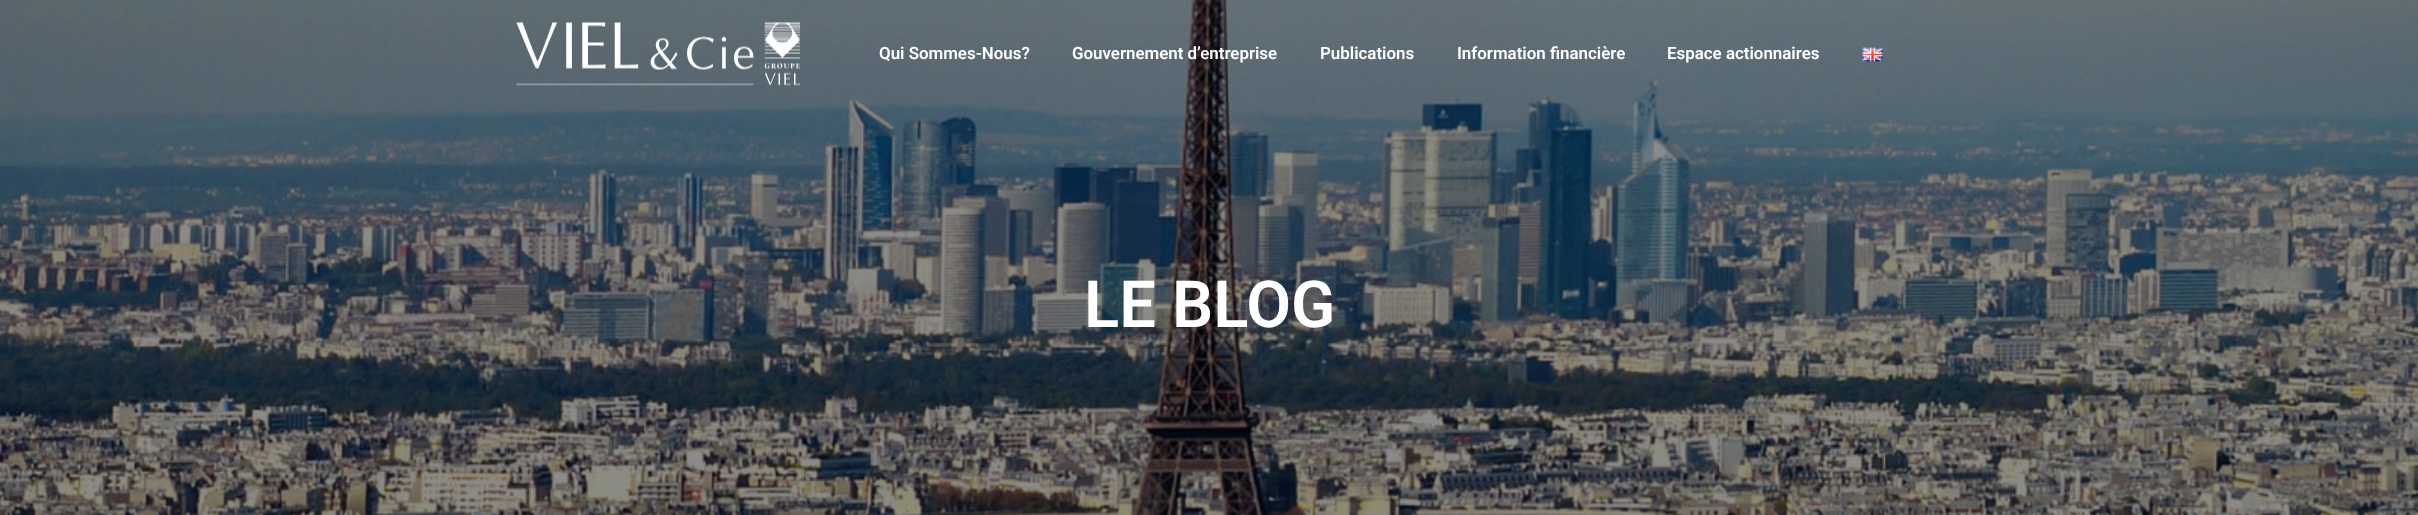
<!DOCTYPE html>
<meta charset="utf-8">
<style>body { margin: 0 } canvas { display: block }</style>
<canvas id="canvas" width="2418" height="515"></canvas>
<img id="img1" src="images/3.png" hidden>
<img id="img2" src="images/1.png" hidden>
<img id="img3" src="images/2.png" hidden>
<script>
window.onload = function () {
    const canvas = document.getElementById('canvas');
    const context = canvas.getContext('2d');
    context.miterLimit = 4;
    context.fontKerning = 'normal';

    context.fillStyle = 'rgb(255, 255, 255)';
    context.fillRect(0, 0, 2418, 515);
    context.drawImage(document.getElementById('img1'), 0, 0, 2418, 515);
    context.drawImage(document.getElementById('img2'), 516, 22, 284, 64);
    context.drawImage(document.getElementById('img3'), 1862, 47, 21, 15);
    context.font = '600 16.9px Roboto';
    context.fillText('Qui Sommes-Nous?', 879, 59);
    context.fillText('Gouvernement d’entreprise', 1072, 59);
    context.fillText('Publications', 1320, 59);
    context.fillText('Information financière', 1457, 59);
    context.fillText('Espace actionnaires', 1667, 59);
    context.font = '600 65px Roboto';
    context.fillText('LE BLOG', 1084, 327);
};
</script>
